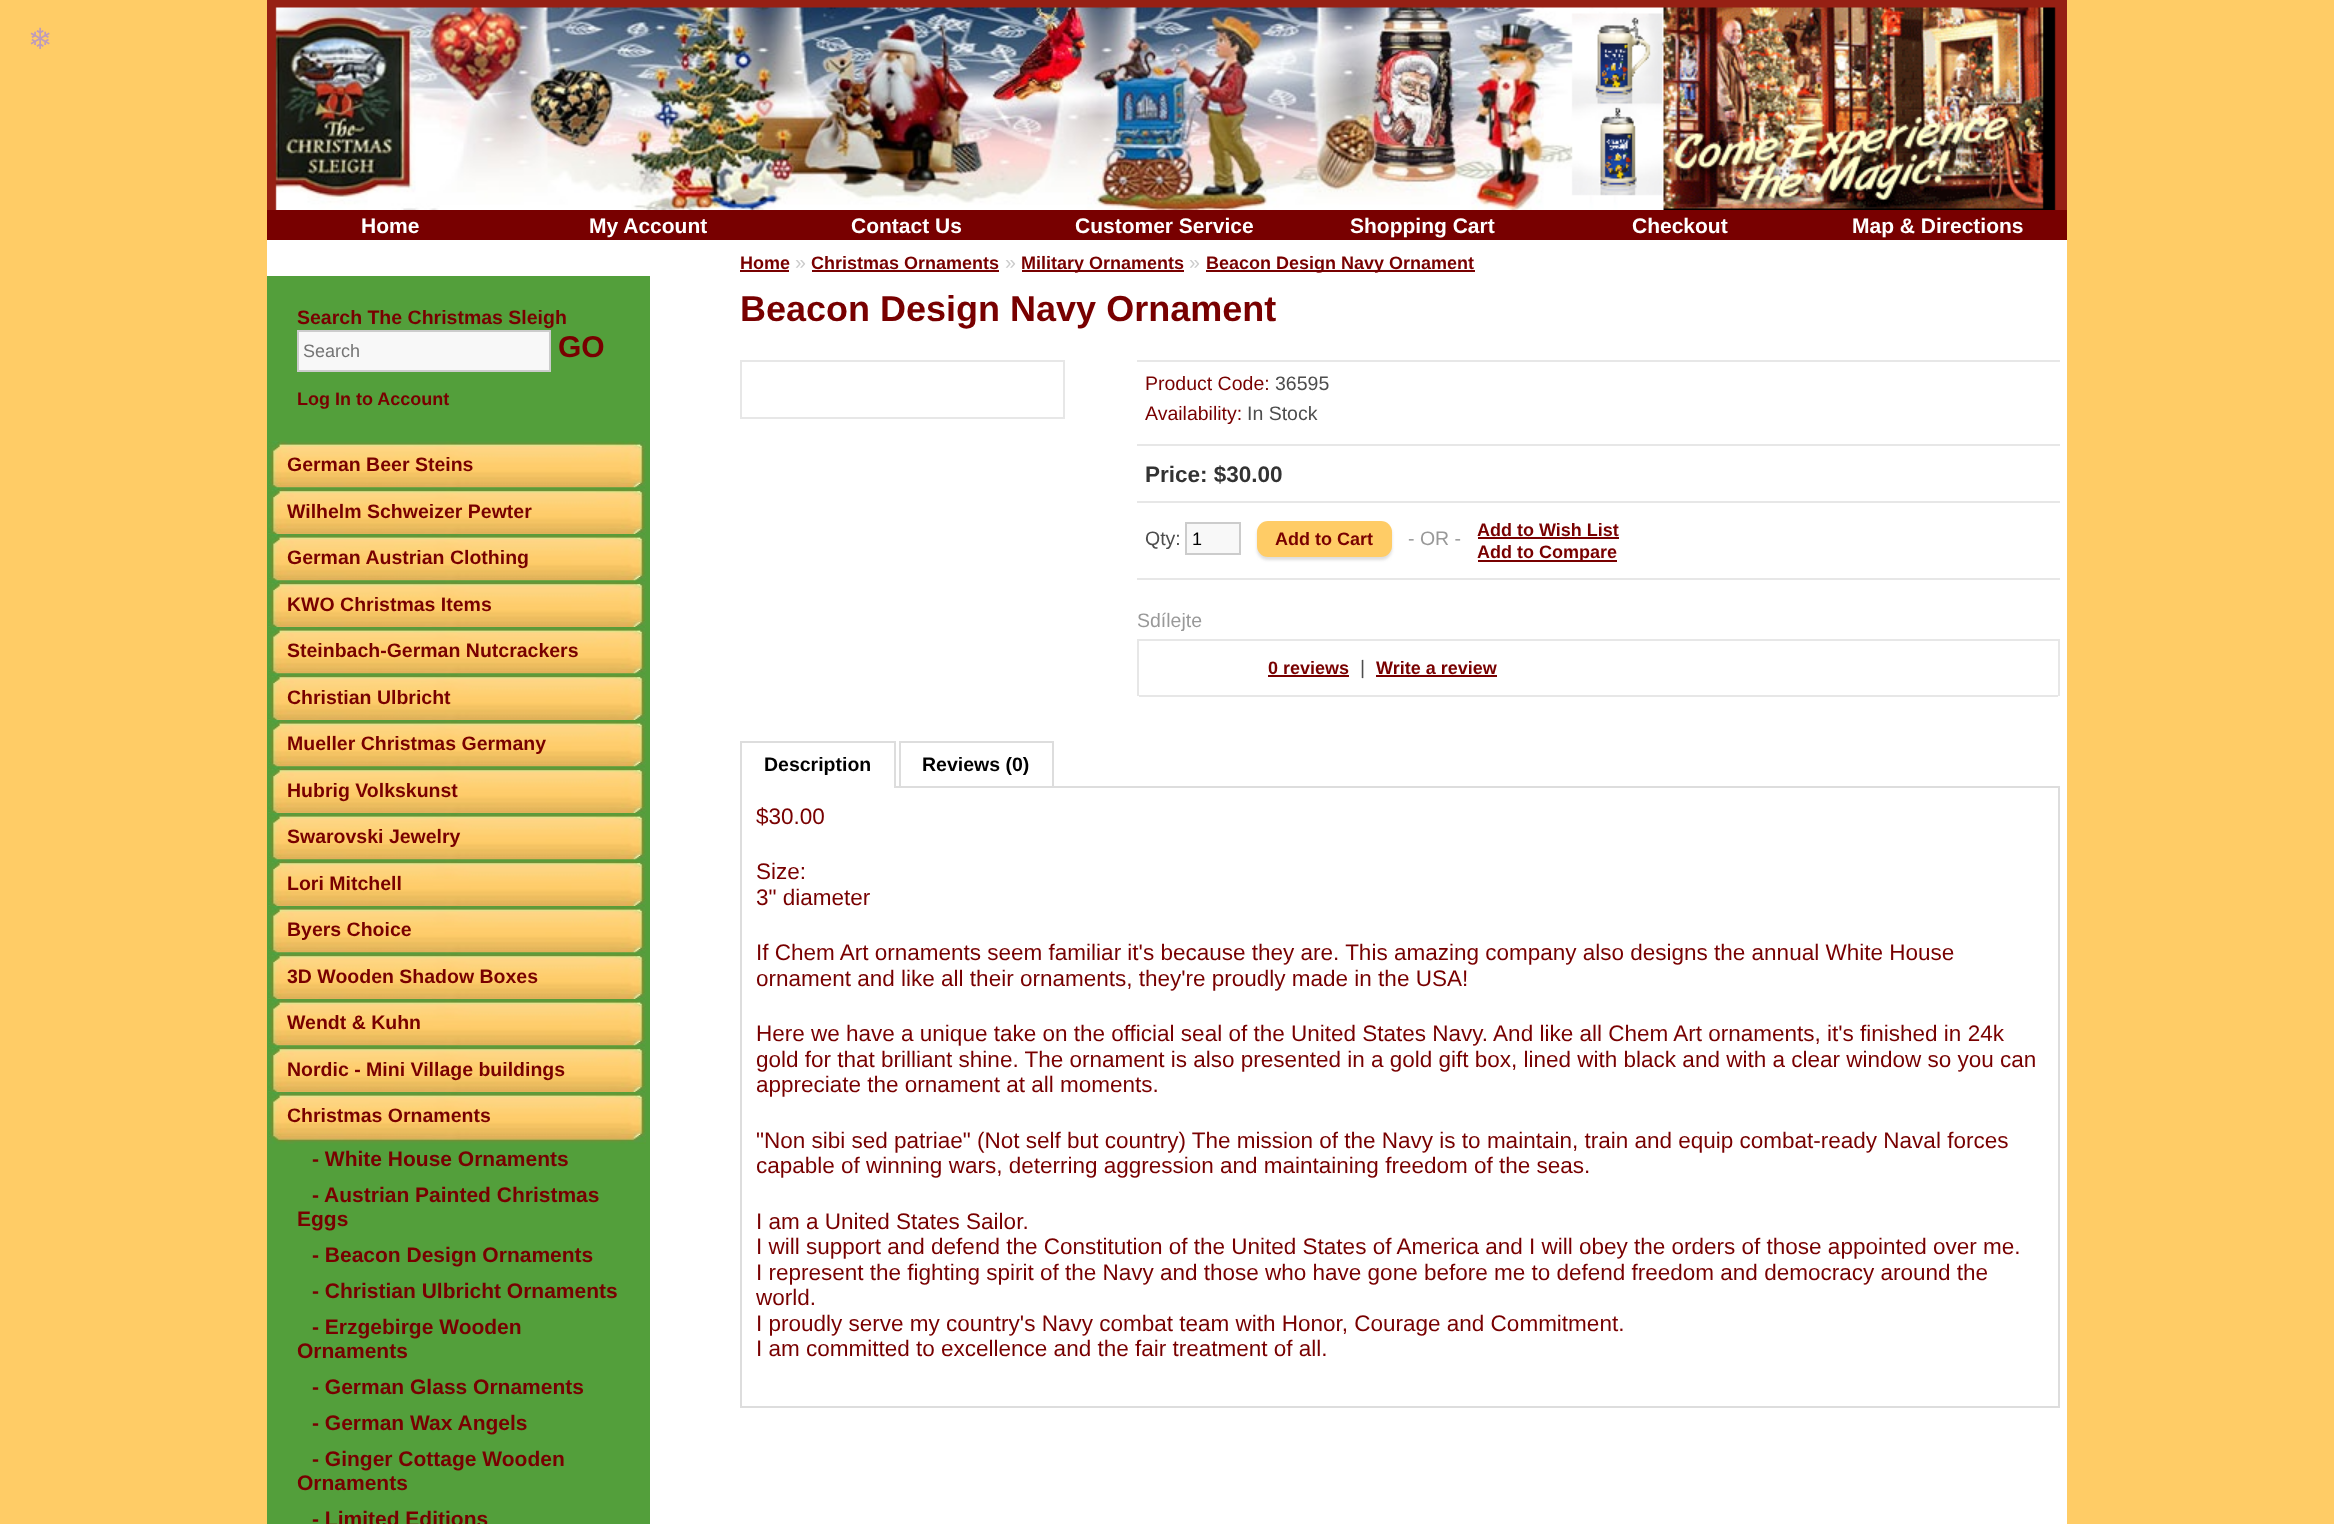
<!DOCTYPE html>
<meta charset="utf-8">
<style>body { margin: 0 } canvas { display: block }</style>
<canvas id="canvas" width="2334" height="1524"></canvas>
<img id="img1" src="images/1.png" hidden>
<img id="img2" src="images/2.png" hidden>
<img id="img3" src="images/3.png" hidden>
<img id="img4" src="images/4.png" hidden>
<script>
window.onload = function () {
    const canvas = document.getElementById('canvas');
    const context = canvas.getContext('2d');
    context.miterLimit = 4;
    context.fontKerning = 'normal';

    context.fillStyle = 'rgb(255, 204, 102)';
    context.fillRect(0, 0, 2334, 1524);
    context.fillStyle = 'rgb(255, 255, 255)';
    context.fillRect(267, 240, 1800, 1284);
    context.drawImage(document.getElementById('img1'), 267, 0, 1800, 210);
    context.fillStyle = 'rgb(120, 0, 0)';
    context.fillRect(267, 210, 1800, 30);
    context.fillStyle = 'rgb(83, 159, 59)';
    context.fillRect(267, 276, 383, 1248);
    context.fillStyle = 'rgb(248, 248, 248)';
    context.beginPath();
    context.rect(298, 331, 252, 40);
    context.fill();
    context.strokeStyle = 'rgb(204, 204, 204)';
    context.lineWidth = 2;
    context.stroke();
    context.drawImage(document.getElementById('img2'), 269, 441, 377, 47);
    context.drawImage(document.getElementById('img3'), 268, 487, 378, 47);
    context.drawImage(document.getElementById('img2'), 269, 534, 377, 47);
    context.drawImage(document.getElementById('img3'), 268, 580, 378, 47);
    context.drawImage(document.getElementById('img2'), 269, 627, 377, 47);
    context.drawImage(document.getElementById('img3'), 268, 673, 378, 47);
    context.drawImage(document.getElementById('img2'), 269, 720, 377, 47);
    context.drawImage(document.getElementById('img3'), 268, 766, 378, 47);
    context.drawImage(document.getElementById('img2'), 269, 813, 377, 47);
    context.drawImage(document.getElementById('img3'), 268, 859, 378, 47);
    context.drawImage(document.getElementById('img2'), 269, 906, 377, 47);
    context.drawImage(document.getElementById('img3'), 268, 952, 378, 47);
    context.drawImage(document.getElementById('img2'), 269, 999, 377, 47);
    context.drawImage(document.getElementById('img3'), 268, 1045, 378, 47);
    context.drawImage(document.getElementById('img4'), 269, 1092, 377, 52);
    context.fillStyle = 'rgb(120, 0, 0)';
    context.fillRect(740, 270, 49, 2);
    context.fillRect(812, 270, 187, 2);
    context.fillRect(1022, 270, 162, 2);
    context.fillRect(1206, 270, 269, 2);
    context.strokeStyle = 'rgb(231, 231, 231)';
    context.strokeRect(741, 361, 323, 57);
    context.fillStyle = 'rgb(231, 231, 231)';
    context.fillRect(1137, 360, 923, 2);
    context.fillRect(1137, 444, 923, 2);
    context.fillRect(1137, 501, 923, 2);
    context.fillRect(1137, 578, 923, 2);
    context.fillStyle = 'rgb(248, 248, 248)';
    context.beginPath();
    context.rect(1186, 523, 54, 31);
    context.fill();
    context.strokeStyle = 'rgb(204, 204, 204)';
    context.stroke();
    context.fillStyle = 'rgb(221, 221, 221)';
    context.filter = 'blur(1.5px)';
    context.beginPath();
    context.roundRect(1257, 524, 135, 36, 11);
    context.fill();
    context.filter = 'none';
    context.fillStyle = 'rgb(255, 204, 102)';
    context.beginPath();
    context.roundRect(1257, 521, 135, 36, 11);
    context.fill();
    context.fillStyle = 'rgb(120, 0, 0)';
    context.fillRect(1478, 537, 141, 2);
    context.fillRect(1478, 560, 139, 2);
    context.fillStyle = 'rgb(231, 231, 231)';
    context.fillRect(1137, 639, 923, 2);
    context.fillRect(2058, 639, 2, 57);
    context.fillRect(1137, 639, 2, 57);
    context.fillRect(1139, 695, 919, 2);
    context.fillStyle = 'rgb(120, 0, 0)';
    context.fillRect(1268, 675, 81, 2);
    context.fillRect(1376, 675, 121, 2);
    context.fillStyle = 'rgb(221, 221, 221)';
    context.fillRect(896, 786, 1164, 2);
    context.fillRect(740, 741, 156, 2);
    context.fillRect(894, 741, 2, 47);
    context.fillRect(740, 741, 2, 47);
    context.fillRect(899, 741, 154, 2);
    context.fillRect(1052, 741, 2, 45);
    context.fillRect(899, 741, 2, 45);
    context.fillRect(2058, 788, 2, 619);
    context.fillRect(740, 1406, 1320, 2);
    context.fillRect(740, 788, 2, 619);
    context.font = '29px DejaVu Sans';
    context.fillStyle = 'rgb(190, 156, 189)';
    context.fillText('❄', 28, 49);
    context.font = 'bold 21px Liberation Sans';
    context.fillStyle = 'rgb(255, 255, 255)';
    context.fillText('Home', 361, 233);
    context.fillText('My Account', 589, 233);
    context.fillText('Contact Us', 851, 233);
    context.fillText('Customer Service', 1075, 233);
    context.fillText('Shopping Cart', 1350, 233);
    context.fillText('Checkout', 1632, 233);
    context.fillText('Map & Directions', 1852, 233);
    context.font = 'bold 19.5px Liberation Sans';
    context.fillStyle = 'rgb(120, 0, 0)';
    context.fillText('Search The Christmas Sleigh', 297, 324);
    context.font = '18px Liberation Sans';
    context.fillStyle = 'rgb(117, 117, 117)';
    context.fillText('Search', 303, 357);
    context.font = 'bold 30px Liberation Sans';
    context.fillStyle = 'rgb(120, 0, 0)';
    context.fillText('GO', 558, 357);
    context.font = 'bold 18px Liberation Sans';
    context.fillText('Log In to Account', 297, 405);
    context.font = 'bold 19.5px Liberation Sans';
    context.fillText('German Beer Steins', 287, 471);
    context.fillText('Wilhelm Schweizer Pewter', 287, 518);
    context.fillText('German Austrian Clothing', 287, 564);
    context.fillText('KWO Christmas Items', 287, 611);
    context.fillText('Steinbach-German Nutcrackers', 287, 657);
    context.fillText('Christian Ulbricht', 287, 704);
    context.fillText('Mueller Christmas Germany', 287, 750);
    context.fillText('Hubrig Volkskunst', 287, 797);
    context.fillText('Swarovski Jewelry', 287, 843);
    context.fillText('Lori Mitchell', 287, 890);
    context.fillText('Byers Choice', 287, 936);
    context.fillText('3D Wooden Shadow Boxes', 287, 983);
    context.fillText('Wendt & Kuhn', 287, 1029);
    context.fillText('Nordic - Mini Village buildings', 287, 1076);
    context.fillText('Christmas Ornaments', 287, 1122);
    context.font = 'bold 21px Liberation Sans';
    context.fillText('- White House Ornaments', 312, 1166);
    context.fillText('- Austrian Painted Christmas', 312, 1202);
    context.fillText('Eggs', 297, 1226);
    context.fillText('- Beacon Design Ornaments', 312, 1262);
    context.fillText('- Christian Ulbricht Ornaments', 312, 1298);
    context.fillText('- Erzgebirge Wooden', 312, 1334);
    context.fillText('Ornaments', 297, 1358);
    context.fillText('- German Glass Ornaments', 312, 1394);
    context.fillText('- German Wax Angels', 312, 1430);
    context.fillText('- Ginger Cottage Wooden', 312, 1466);
    context.fillText('Ornaments', 297, 1490);
    context.fillText('- Limited Editions', 312, 1526);
    context.font = 'bold 18px Liberation Sans';
    context.fillText('Home', 740, 269);
    context.font = '19.5px Liberation Sans';
    context.fillStyle = 'rgb(204, 204, 204)';
    context.fillText('»', 795, 269);
    context.font = 'bold 18px Liberation Sans';
    context.fillStyle = 'rgb(120, 0, 0)';
    context.fillText('Christmas Ornaments', 811, 269);
    context.font = '19.5px Liberation Sans';
    context.fillStyle = 'rgb(204, 204, 204)';
    context.fillText('»', 1005, 269);
    context.font = 'bold 18px Liberation Sans';
    context.fillStyle = 'rgb(120, 0, 0)';
    context.fillText('Military Ornaments', 1021, 269);
    context.font = '19.5px Liberation Sans';
    context.fillStyle = 'rgb(204, 204, 204)';
    context.fillText('»', 1189, 269);
    context.font = 'bold 18px Liberation Sans';
    context.fillStyle = 'rgb(120, 0, 0)';
    context.fillText('Beacon Design Navy Ornament', 1206, 269);
    context.font = 'bold 36px Liberation Sans';
    context.fillText('Beacon Design Navy Ornament', 740, 321);
    context.font = '19.5px Liberation Sans';
    context.fillText('Product Code:', 1145, 390);
    context.fillStyle = 'rgb(77, 77, 77)';
    context.fillText('36595', 1275, 390);
    context.fillStyle = 'rgb(120, 0, 0)';
    context.fillText('Availability:', 1145, 420);
    context.fillStyle = 'rgb(77, 77, 77)';
    context.fillText('In Stock', 1247, 420);
    context.font = 'bold 22.5px Liberation Sans';
    context.fillStyle = 'rgb(51, 51, 51)';
    context.fillText('Price: $30.00', 1145, 482);
    context.font = '19.5px Liberation Sans';
    context.fillStyle = 'rgb(77, 77, 77)';
    context.fillText('Qty:', 1145, 545);
    context.font = '18px Liberation Sans';
    context.fillStyle = 'rgb(0, 0, 0)';
    context.fillText('1', 1192, 545);
    context.font = 'bold 18px Liberation Sans';
    context.fillStyle = 'rgb(120, 0, 0)';
    context.fillText('Add to Cart', 1275, 545);
    context.font = '19.5px Liberation Sans';
    context.fillStyle = 'rgb(153, 153, 153)';
    context.fillText('- OR -', 1408, 545);
    context.font = 'bold 18px Liberation Sans';
    context.fillStyle = 'rgb(120, 0, 0)';
    context.fillText('Add to Wish List', 1477, 536);
    context.fillText('Add to Compare', 1477, 558);
    context.font = '19.5px Liberation Sans';
    context.fillStyle = 'rgb(153, 153, 153)';
    context.fillText('Sdílejte', 1137, 627);
    context.font = 'bold 18px Liberation Sans';
    context.fillStyle = 'rgb(120, 0, 0)';
    context.fillText('0 reviews', 1268, 674);
    context.font = '19.5px Liberation Sans';
    context.fillStyle = 'rgb(77, 77, 77)';
    context.fillText('|', 1360, 674);
    context.font = 'bold 18px Liberation Sans';
    context.fillStyle = 'rgb(120, 0, 0)';
    context.fillText('Write a review', 1376, 674);
    context.font = 'bold 19.5px Liberation Sans';
    context.fillStyle = 'rgb(0, 0, 0)';
    context.fillText('Description', 764, 771);
    context.fillText('Reviews (0)', 922, 771);
    context.font = '22.5px Liberation Sans';
    context.fillStyle = 'rgb(120, 0, 0)';
    context.fillText('$30.00', 756, 824);
    context.fillText('Size:', 756, 879);
    context.fillText('3" diameter', 756, 905);
    context.fillText('If Chem Art ornaments seem familiar it\'s because they are. This amazing company also designs the annual White House', 756, 960);
    context.fillText('ornament and like all their ornaments, they\'re proudly made in the USA!', 756, 986);
    context.fillText('Here we have a unique take on the official seal of the United States Navy. And like all Chem Art ornaments, it\'s finished in 24k', 756, 1041);
    context.fillText('gold for that brilliant shine. The ornament is also presented in a gold gift box, lined with black and with a clear window so you can', 756, 1067);
    context.fillText('appreciate the ornament at all moments.', 756, 1092);
    context.fillText('"Non sibi sed patriae" (Not self but country) The mission of the Navy is to maintain, train and equip combat-ready Naval forces', 756, 1148);
    context.fillText('capable of winning wars, deterring aggression and maintaining freedom of the seas.', 756, 1173);
    context.fillText('I am a United States Sailor.', 756, 1229);
    context.fillText('I will support and defend the Constitution of the United States of America and I will obey the orders of those appointed over me.', 756, 1254);
    context.fillText('I represent the fighting spirit of the Navy and those who have gone before me to defend freedom and democracy around the', 756, 1280);
    context.fillText('world.', 756, 1305);
    context.fillText('I proudly serve my country\'s Navy combat team with Honor, Courage and Commitment.', 756, 1331);
    context.fillText('I am committed to excellence and the fair treatment of all.', 756, 1356);
};
</script>
